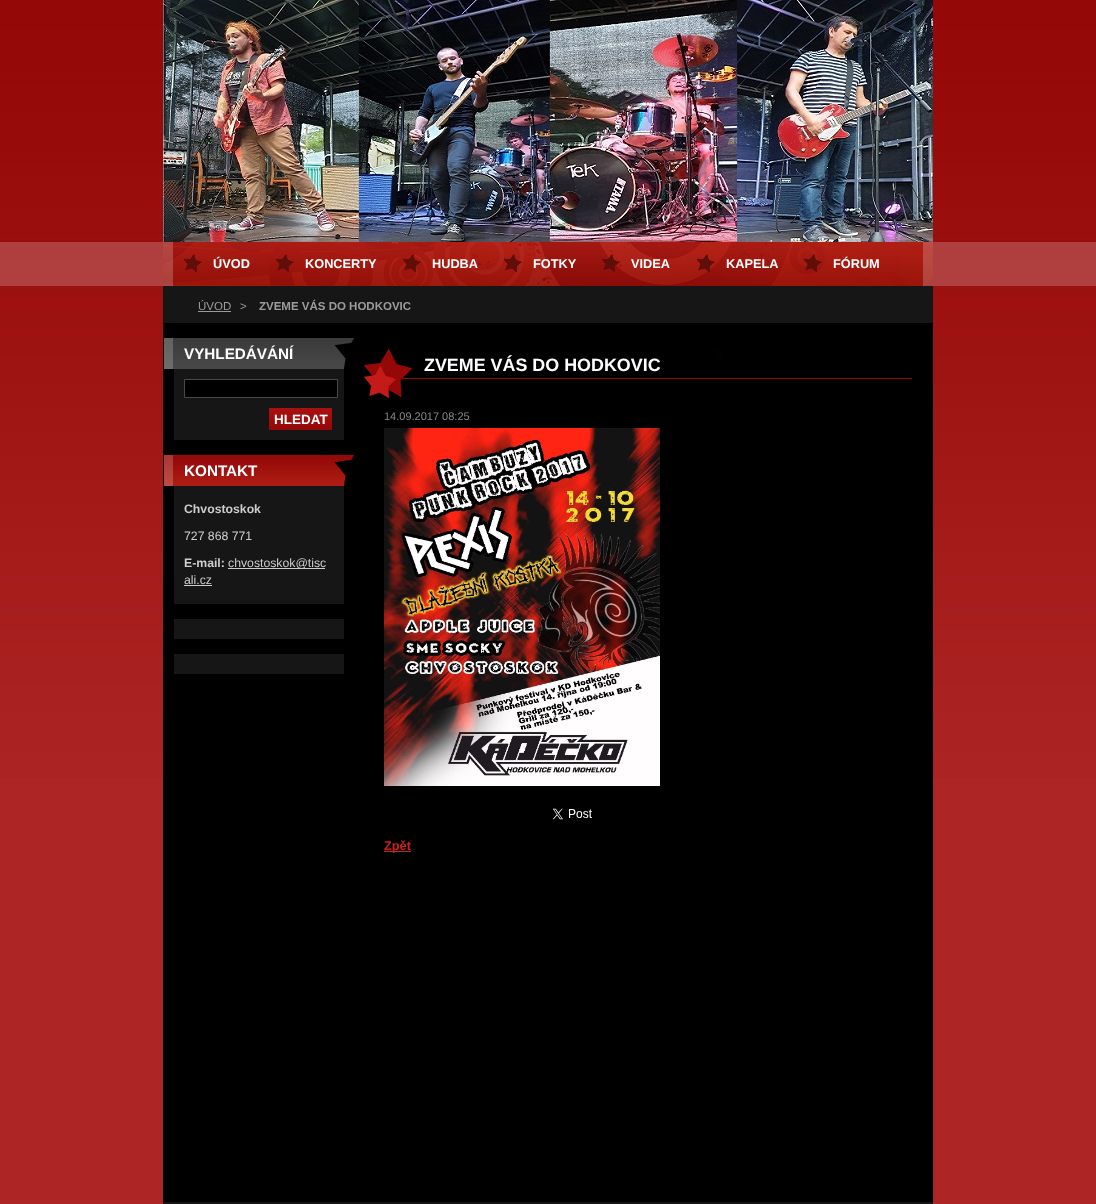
<!DOCTYPE html>
<meta charset="utf-8">
<style>body { margin: 0 } canvas { display: block }</style>
<canvas id="canvas" width="1096" height="1204"></canvas>
<img id="img1" src="images/1.png" hidden>
<img id="img2" src="images/2.png" hidden>
<img id="img3" src="images/3.png" hidden>
<img id="img4" src="images/4.png" hidden>
<img id="img5" src="images/5.png" hidden>
<img id="img6" src="images/6.png" hidden>
<img id="img7" src="images/7.png" hidden>
<img id="img8" src="images/8.png" hidden>
<img id="img9" src="images/9.png" hidden>
<img id="img10" src="images/10.png" hidden>
<img id="img11" src="images/11.png" hidden>
<img id="img12" src="images/12.png" hidden>
<img id="img13" src="images/13.png" hidden>
<img id="img14" src="images/14.png" hidden>
<img id="img15" src="images/15.png" hidden>
<img id="img16" src="images/16.png" hidden>
<script>
window.onload = function () {
    const canvas = document.getElementById('canvas');
    const context = canvas.getContext('2d');
    context.miterLimit = 4;
    context.fontKerning = 'normal';

    context.fillStyle = 'rgb(173, 38, 37)';
    context.fillRect(0, 0, 1096, 1204);
    context.drawImage(document.getElementById('img1'), 0, 0, 1096, 778);
    context.fillStyle = 'rgb(0, 0, 0)';
    context.fillRect(163, 323, 770, 879);
    context.drawImage(document.getElementById('img2'), 163, 0, 770, 242);
    context.drawImage(document.getElementById('img3'), 163, 242, 770, 44);
    context.drawImage(document.getElementById('img4'), 184, 254, 18, 18);
    context.drawImage(document.getElementById('img5'), 276, 254, 18, 18);
    context.drawImage(document.getElementById('img6'), 403, 254, 18, 18);
    context.drawImage(document.getElementById('img7'), 504, 254, 18, 18);
    context.drawImage(document.getElementById('img8'), 602, 254, 18, 18);
    context.drawImage(document.getElementById('img9'), 697, 254, 18, 18);
    context.drawImage(document.getElementById('img10'), 804, 254, 18, 18);
    context.fillStyle = 'rgb(22, 22, 22)';
    context.fillRect(163, 286, 770, 37);
    context.fillStyle = 'rgb(155, 155, 155)';
    context.fillRect(198, 311, 33, 1);
    context.drawImage(document.getElementById('img11'), 164, 338, 190, 31);
    context.fillStyle = 'rgb(22, 22, 22)';
    context.fillRect(174, 369, 170, 71);
    context.fillStyle = 'rgb(0, 0, 0)';
    context.beginPath();
    context.rect(184.5, 379.5, 153, 18);
    context.fill();
    context.strokeStyle = 'rgb(72, 72, 72)';
    context.stroke();
    context.drawImage(document.getElementById('img12'), 269, 408, 63, 22);
    context.drawImage(document.getElementById('img13'), 164, 455, 190, 31);
    context.fillStyle = 'rgb(22, 22, 22)';
    context.fillRect(174, 486, 170, 118);
    context.fillStyle = 'rgb(205, 205, 205)';
    context.fillRect(228, 568, 97, 1);
    context.fillRect(184, 585, 28, 1);
    context.fillStyle = 'rgb(22, 22, 22)';
    context.fillRect(174, 619, 170, 20);
    context.fillRect(174, 654, 170, 20);
    context.drawImage(document.getElementById('img14'), 364, 349, 548, 49);
    context.drawImage(document.getElementById('img15'), 384, 428, 276, 358);
    context.drawImage(document.getElementById('img16'), 552, 808, 40, 12);
    context.fillStyle = 'rgb(206, 33, 31)';
    context.fillRect(384, 851, 27, 1);
    context.fillStyle = 'rgb(20, 20, 20)';
    context.fillRect(163, 1202, 770, 2);
    context.font = 'bold 12.75px Liberation Sans';
    context.fillStyle = 'rgb(255, 255, 255)';
    context.fillText('ÚVOD', 213, 268);
    context.fillText('KONCERTY', 305, 268);
    context.fillText('HUDBA', 432, 268);
    context.fillText('FOTKY', 533, 268);
    context.fillText('VIDEA', 631, 268);
    context.fillText('KAPELA', 726, 268);
    context.fillText('FÓRUM', 833, 268);
    context.font = '11.5px Liberation Sans';
    context.fillStyle = 'rgb(155, 155, 155)';
    context.fillText('ÚVOD', 198, 310);
    context.fillText('>', 240, 310);
    context.font = 'bold 11.5px Liberation Sans';
    context.fillText('ZVEME VÁS DO HODKOVIC', 259, 310);
    context.font = 'bold 15.25px Liberation Sans';
    context.fillStyle = 'rgb(255, 255, 255)';
    context.fillText('VYHLEDÁVÁNÍ', 184, 359);
    context.font = 'bold 13.5px Liberation Sans';
    context.fillText('HLEDAT', 274, 424);
    context.font = 'bold 15.25px Liberation Sans';
    context.fillText('KONTAKT', 184, 476);
    context.font = 'bold 12.25px Liberation Sans';
    context.fillStyle = 'rgb(205, 205, 205)';
    context.fillText('Chvostoskok', 184, 513);
    context.font = '12.25px Liberation Sans';
    context.fillText('727 868 771', 184, 540);
    context.font = 'bold 12.25px Liberation Sans';
    context.fillText('E-mail:', 184, 567);
    context.font = '12.25px Liberation Sans';
    context.fillText('chvostoskok@tisc', 228, 567);
    context.fillText('ali.cz', 184, 584);
    context.font = 'bold 17.9px Liberation Sans';
    context.fillStyle = 'rgb(255, 255, 255)';
    context.fillText('ZVEME VÁS DO HODKOVIC', 424, 371);
    context.font = '11px Liberation Sans';
    context.fillStyle = 'rgb(136, 136, 136)';
    context.fillText('14.09.2017 08:25', 384, 420);
    context.font = 'bold 12.75px Liberation Sans';
    context.fillStyle = 'rgb(206, 33, 31)';
    context.fillText('Zpět', 384, 850);
};
</script>
